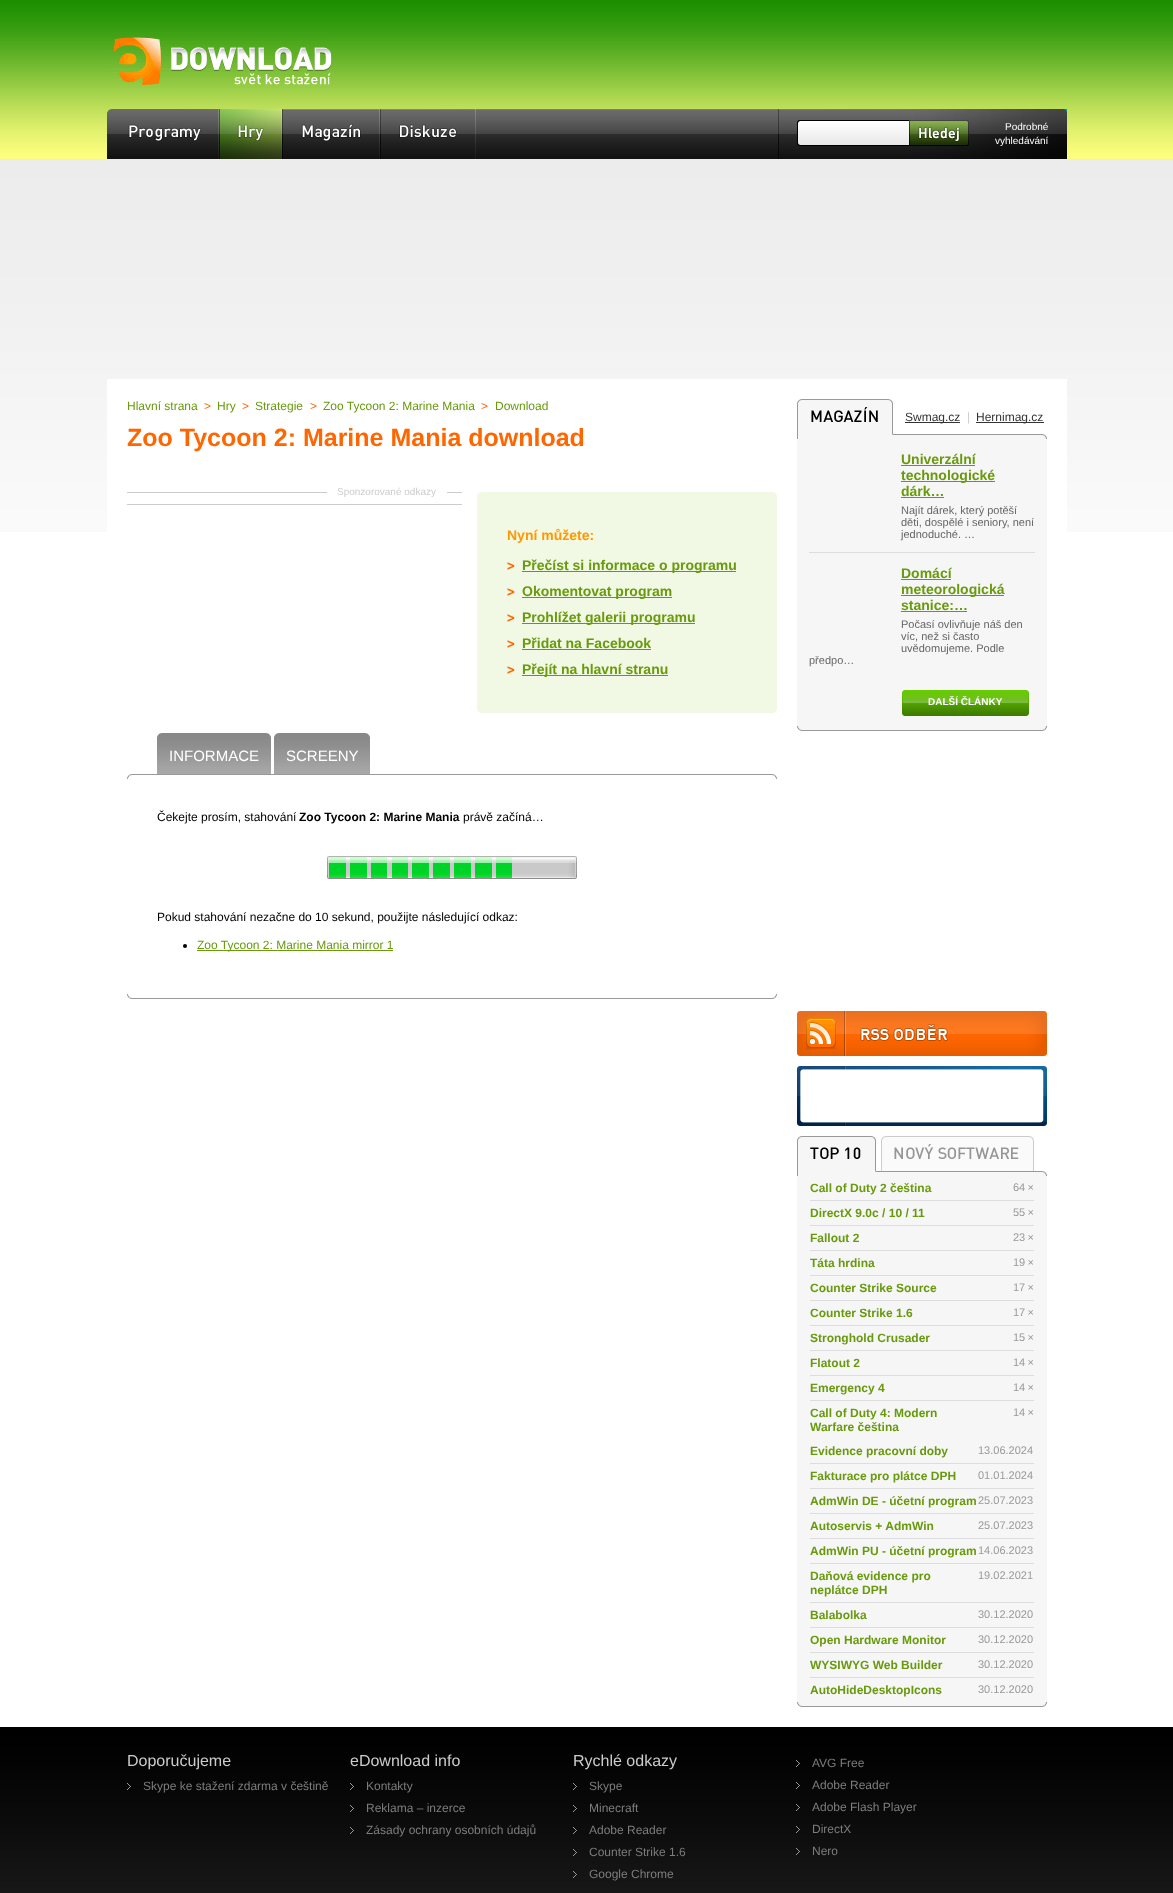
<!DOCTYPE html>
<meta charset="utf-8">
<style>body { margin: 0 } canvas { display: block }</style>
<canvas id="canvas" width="1173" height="1893"></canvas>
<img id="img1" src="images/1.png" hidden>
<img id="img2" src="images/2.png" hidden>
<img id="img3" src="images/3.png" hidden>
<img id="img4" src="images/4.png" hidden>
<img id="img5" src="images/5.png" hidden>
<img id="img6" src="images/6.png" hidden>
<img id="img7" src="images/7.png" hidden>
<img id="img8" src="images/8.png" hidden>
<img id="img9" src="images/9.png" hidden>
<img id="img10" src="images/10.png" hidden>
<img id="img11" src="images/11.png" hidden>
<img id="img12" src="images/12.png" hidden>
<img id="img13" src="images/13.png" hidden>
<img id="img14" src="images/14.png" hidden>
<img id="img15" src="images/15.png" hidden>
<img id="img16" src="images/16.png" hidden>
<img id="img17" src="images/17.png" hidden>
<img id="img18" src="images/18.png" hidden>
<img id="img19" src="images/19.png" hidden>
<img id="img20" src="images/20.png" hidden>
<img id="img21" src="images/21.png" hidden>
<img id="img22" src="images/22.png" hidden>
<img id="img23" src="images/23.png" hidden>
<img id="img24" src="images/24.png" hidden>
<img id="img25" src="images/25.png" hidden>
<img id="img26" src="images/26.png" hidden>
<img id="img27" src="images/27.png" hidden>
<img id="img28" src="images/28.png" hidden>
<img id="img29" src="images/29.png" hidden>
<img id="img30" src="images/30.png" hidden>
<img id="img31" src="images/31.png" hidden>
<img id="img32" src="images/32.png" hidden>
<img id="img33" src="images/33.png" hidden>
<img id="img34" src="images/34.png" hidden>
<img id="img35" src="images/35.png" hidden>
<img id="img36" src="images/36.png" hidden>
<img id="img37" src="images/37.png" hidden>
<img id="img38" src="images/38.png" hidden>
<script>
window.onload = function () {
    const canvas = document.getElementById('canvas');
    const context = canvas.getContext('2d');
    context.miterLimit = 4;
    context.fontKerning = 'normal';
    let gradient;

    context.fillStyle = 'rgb(255, 255, 255)';
    context.fillRect(0, 0, 1173, 1893);
    context.drawImage(document.getElementById('img1'), 0, 0, 1173, 532);
    context.drawImage(document.getElementById('img2'), 107, 37, 225, 48);
    context.drawImage(document.getElementById('img3'), 476, 109, 302, 50);
    context.drawImage(document.getElementById('img4'), 107, 109, 112, 50);
    context.drawImage(document.getElementById('img5'), 219, 109, 63, 50);
    context.drawImage(document.getElementById('img6'), 282, 109, 98, 50);
    context.drawImage(document.getElementById('img7'), 380, 109, 96, 50);
    context.drawImage(document.getElementById('img8'), 778, 109, 289, 50);
    gradient = context.createLinearGradient(854, 121, 854, 145);
    gradient.addColorStop(0, 'rgb(255, 255, 255)');
    gradient.addColorStop(1, 'rgb(232, 232, 232)');
    context.fillStyle = gradient;
    context.beginPath();
    context.roundRect(798, 121, 111, 24, [2, 0, 0, 2]);
    context.fill();
    context.fillStyle = 'rgb(0, 0, 0)';
    context.beginPath();
    context.moveTo(800, 120);
    context.lineTo(909, 120);
    context.lineTo(909, 146);
    context.lineTo(800, 146);
    context.bezierCurveTo(798, 146, 797, 145, 797, 143);
    context.lineTo(797, 123);
    context.bezierCurveTo(797, 121, 798, 120, 800, 120);
    context.closePath();
    context.moveTo(800, 121);
    context.lineTo(909, 121);
    context.lineTo(909, 145);
    context.lineTo(800, 145);
    context.bezierCurveTo(799, 145, 798, 144, 798, 143);
    context.lineTo(798, 123);
    context.bezierCurveTo(798, 122, 799, 121, 800, 121);
    context.closePath();
    context.fill('evenodd');
    context.drawImage(document.getElementById('img9'), 909, 120, 60, 26);
    context.fillStyle = 'rgb(255, 255, 255)';
    context.fillRect(107, 379, 960, 153);
    context.fillStyle = 'rgb(204, 204, 204)';
    context.fillRect(127, 492, 335, 1);
    context.fillRect(127, 504, 335, 1);
    context.fillStyle = 'rgb(255, 255, 255)';
    context.fillRect(327, 492, 120, 1);
    context.fillStyle = 'rgb(241, 248, 227)';
    context.fillRect(477, 496, 300, 214);
    context.drawImage(document.getElementById('img10'), 477, 492, 300, 4);
    context.drawImage(document.getElementById('img11'), 507, 562, 8, 8);
    context.fillStyle = 'rgb(104, 154, 12)';
    context.fillRect(522, 571, 214, 1);
    context.drawImage(document.getElementById('img11'), 507, 588, 8, 8);
    context.fillRect(522, 597, 150, 1);
    context.drawImage(document.getElementById('img11'), 507, 614, 8, 8);
    context.fillRect(522, 623, 173, 1);
    context.drawImage(document.getElementById('img11'), 507, 640, 8, 8);
    context.fillRect(522, 649, 129, 1);
    context.drawImage(document.getElementById('img11'), 507, 666, 8, 8);
    context.fillRect(522, 675, 146, 1);
    context.drawImage(document.getElementById('img12'), 477, 710, 300, 3);
    context.drawImage(document.getElementById('img13'), 127, 774, 650, 5);
    context.drawImage(document.getElementById('img14'), 157, 733, 5, 41);
    context.drawImage(document.getElementById('img15'), 162, 733, 104, 41);
    context.drawImage(document.getElementById('img16'), 266, 733, 5, 41);
    context.drawImage(document.getElementById('img14'), 274, 733, 5, 41);
    context.drawImage(document.getElementById('img17'), 279, 733, 86, 41);
    context.drawImage(document.getElementById('img16'), 365, 733, 5, 41);
    context.drawImage(document.getElementById('img18'), 327, 856, 250, 23);
    context.fillStyle = 'rgb(0, 0, 0)';
    context.beginPath();
    context.arc(185, 946, 2, 0, 2 * Math.PI);
    context.fill();
    context.fillStyle = 'rgb(104, 154, 12)';
    context.fillRect(197, 950, 196, 1);
    context.drawImage(document.getElementById('img19'), 127, 994, 650, 5);
    context.fillStyle = 'rgb(246, 246, 246)';
    context.fillRect(797, 439, 250, 287);
    context.drawImage(document.getElementById('img20'), 797, 399, 250, 40);
    context.fillStyle = 'rgb(51, 51, 51)';
    context.fillRect(905, 422, 55, 1);
    context.fillRect(976, 422, 68, 1);
    context.fillStyle = 'rgb(221, 221, 221)';
    context.fillRect(809, 552, 226, 1);
    context.fillStyle = 'rgb(104, 154, 12)';
    context.fillRect(901, 465, 74, 1);
    context.fillRect(901, 481, 94, 1);
    context.fillRect(901, 497, 43, 1);
    context.fillRect(901, 579, 50, 1);
    context.fillRect(901, 595, 103, 1);
    context.fillRect(901, 611, 66, 1);
    context.drawImage(document.getElementById('img21'), 902, 690, 127, 26);
    context.drawImage(document.getElementById('img22'), 797, 726, 250, 5);
    context.drawImage(document.getElementById('img23'), 797, 1011, 250, 45);
    context.drawImage(document.getElementById('img24'), 797, 1066, 250, 60);
    context.fillStyle = 'rgb(246, 246, 246)';
    context.fillRect(797, 1176, 250, 526);
    context.drawImage(document.getElementById('img25'), 797, 1171, 250, 5);
    context.drawImage(document.getElementById('img26'), 797, 1136, 79, 36);
    context.drawImage(document.getElementById('img27'), 881, 1136, 153, 35);
    context.fillStyle = 'rgb(221, 221, 221)';
    context.fillRect(810, 1200, 224, 1);
    context.fillRect(810, 1225, 224, 1);
    context.fillRect(810, 1250, 224, 1);
    context.fillRect(810, 1275, 224, 1);
    context.fillRect(810, 1300, 224, 1);
    context.fillRect(810, 1325, 224, 1);
    context.fillRect(810, 1350, 224, 1);
    context.fillRect(810, 1375, 224, 1);
    context.fillRect(810, 1400, 224, 1);
    context.fillRect(810, 1463, 224, 1);
    context.fillRect(810, 1488, 224, 1);
    context.fillRect(810, 1513, 224, 1);
    context.fillRect(810, 1538, 224, 1);
    context.fillRect(810, 1563, 224, 1);
    context.fillRect(810, 1602, 224, 1);
    context.fillRect(810, 1627, 224, 1);
    context.fillRect(810, 1652, 224, 1);
    context.fillRect(810, 1677, 224, 1);
    context.drawImage(document.getElementById('img22'), 797, 1702, 250, 5);
    context.drawImage(document.getElementById('img28'), 0, 1727, 1173, 166);
    context.drawImage(document.getElementById('img29'), 127, 1783, 4, 7);
    context.drawImage(document.getElementById('img29'), 350, 1783, 4, 7);
    context.drawImage(document.getElementById('img30'), 350, 1805, 4, 7);
    context.drawImage(document.getElementById('img31'), 350, 1827, 4, 7);
    context.drawImage(document.getElementById('img29'), 573, 1783, 4, 7);
    context.drawImage(document.getElementById('img30'), 573, 1805, 4, 7);
    context.drawImage(document.getElementById('img31'), 573, 1827, 4, 7);
    context.drawImage(document.getElementById('img32'), 573, 1849, 4, 7);
    context.drawImage(document.getElementById('img33'), 573, 1871, 4, 7);
    context.drawImage(document.getElementById('img34'), 796, 1760, 4, 7);
    context.drawImage(document.getElementById('img35'), 796, 1782, 4, 7);
    context.drawImage(document.getElementById('img36'), 796, 1804, 4, 7);
    context.drawImage(document.getElementById('img37'), 796, 1826, 4, 7);
    context.drawImage(document.getElementById('img38'), 796, 1848, 4, 7);
    context.font = '10px Liberation Sans';
    context.fillStyle = 'rgb(255, 255, 255)';
    context.fillText('Podrobné', 1005, 130);
    context.fillText('vyhledávání', 995, 144);
    context.font = '12px Liberation Sans';
    context.fillStyle = 'rgb(104, 154, 12)';
    context.fillText('Hlavní strana', 127, 410);
    context.fillStyle = 'rgb(255, 102, 0)';
    context.fillText('>', 204, 410);
    context.fillStyle = 'rgb(104, 154, 12)';
    context.fillText('Hry', 217, 410);
    context.fillStyle = 'rgb(255, 102, 0)';
    context.fillText('>', 242, 410);
    context.fillStyle = 'rgb(104, 154, 12)';
    context.fillText('Strategie', 255, 410);
    context.fillStyle = 'rgb(255, 102, 0)';
    context.fillText('>', 310, 410);
    context.fillStyle = 'rgb(104, 154, 12)';
    context.fillText('Zoo Tycoon 2: Marine Mania', 323, 410);
    context.fillStyle = 'rgb(255, 102, 0)';
    context.fillText('>', 481, 410);
    context.fillStyle = 'rgb(104, 154, 12)';
    context.fillText('Download', 495, 410);
    context.font = 'bold 25px Liberation Sans';
    context.fillStyle = 'rgb(255, 102, 0)';
    context.fillText('Zoo Tycoon 2: Marine Mania download', 127, 446);
    context.font = '10px Liberation Sans';
    context.fillStyle = 'rgb(204, 204, 204)';
    context.fillText('Sponzorované odkazy', 337, 495);
    context.font = 'bold 14px Liberation Sans';
    context.fillStyle = 'rgb(255, 153, 0)';
    context.fillText('Nyní můžete:', 507, 540);
    context.fillStyle = 'rgb(104, 154, 12)';
    context.fillText('Přečíst si informace o programu', 522, 570);
    context.fillText('Okomentovat program', 522, 596);
    context.fillText('Prohlížet galerii programu', 522, 622);
    context.fillText('Přidat na Facebook', 522, 648);
    context.fillText('Přejít na hlavní stranu', 522, 674);
    context.font = '15px Liberation Sans';
    context.fillStyle = 'rgb(255, 255, 255)';
    context.fillText('INFORMACE', 169, 761);
    context.fillText('SCREENY', 286, 761);
    context.font = '12px Liberation Sans';
    context.fillStyle = 'rgb(0, 0, 0)';
    context.fillText('Čekejte prosím, stahování', 157, 821);
    context.font = 'bold 12px Liberation Sans';
    context.fillText('Zoo Tycoon 2: Marine Mania', 299, 821);
    context.font = '12px Liberation Sans';
    context.fillText('právě začíná…', 463, 821);
    context.fillText('Pokud stahování nezačne do 10 sekund, použijte následující odkaz:', 157, 921);
    context.fillStyle = 'rgb(104, 154, 12)';
    context.fillText('Zoo Tycoon 2: Marine Mania mirror 1', 197, 949);
    context.fillStyle = 'rgb(51, 51, 51)';
    context.fillText('Swmag.cz', 905, 421);
    context.fillStyle = 'rgb(204, 204, 204)';
    context.fillText('|', 967, 421);
    context.fillStyle = 'rgb(51, 51, 51)';
    context.fillText('Hernimag.cz', 976, 421);
    context.font = 'bold 14px Liberation Sans';
    context.fillStyle = 'rgb(104, 154, 12)';
    context.fillText('Univerzální', 901, 464);
    context.fillText('technologické', 901, 480);
    context.fillText('dárk…', 901, 496);
    context.font = '11px Liberation Sans';
    context.fillStyle = 'rgb(102, 102, 102)';
    context.fillText('Najít dárek, který potěší', 901, 514);
    context.fillText('děti, dospělé i seniory, není', 901, 526);
    context.fillText('jednoduché. …', 901, 538);
    context.font = 'bold 14px Liberation Sans';
    context.fillStyle = 'rgb(104, 154, 12)';
    context.fillText('Domácí', 901, 578);
    context.fillText('meteorologická', 901, 594);
    context.fillText('stanice:…', 901, 610);
    context.font = '11px Liberation Sans';
    context.fillStyle = 'rgb(102, 102, 102)';
    context.fillText('Počasí ovlivňuje náš den', 901, 628);
    context.fillText('víc, než si často', 901, 640);
    context.fillText('uvědomujeme. Podle', 901, 652);
    context.fillText('předpo…', 809, 664);
    context.font = 'bold 10px Liberation Sans';
    context.fillStyle = 'rgb(255, 255, 255)';
    context.fillText('DALŠÍ ČLÁNKY', 928, 705);
    context.font = 'bold 12px Liberation Sans';
    context.fillStyle = 'rgb(104, 154, 12)';
    context.fillText('Call of Duty 2 čeština', 810, 1192);
    context.font = '11px Liberation Sans';
    context.fillStyle = 'rgb(153, 153, 153)';
    context.fillText('64 ×', 1013, 1191);
    context.font = 'bold 12px Liberation Sans';
    context.fillStyle = 'rgb(104, 154, 12)';
    context.fillText('DirectX 9.0c / 10 / 11', 810, 1217);
    context.font = '11px Liberation Sans';
    context.fillStyle = 'rgb(153, 153, 153)';
    context.fillText('55 ×', 1013, 1216);
    context.font = 'bold 12px Liberation Sans';
    context.fillStyle = 'rgb(104, 154, 12)';
    context.fillText('Fallout 2', 810, 1242);
    context.font = '11px Liberation Sans';
    context.fillStyle = 'rgb(153, 153, 153)';
    context.fillText('23 ×', 1013, 1241);
    context.font = 'bold 12px Liberation Sans';
    context.fillStyle = 'rgb(104, 154, 12)';
    context.fillText('Táta hrdina', 810, 1267);
    context.font = '11px Liberation Sans';
    context.fillStyle = 'rgb(153, 153, 153)';
    context.fillText('19 ×', 1013, 1266);
    context.font = 'bold 12px Liberation Sans';
    context.fillStyle = 'rgb(104, 154, 12)';
    context.fillText('Counter Strike Source', 810, 1292);
    context.font = '11px Liberation Sans';
    context.fillStyle = 'rgb(153, 153, 153)';
    context.fillText('17 ×', 1013, 1291);
    context.font = 'bold 12px Liberation Sans';
    context.fillStyle = 'rgb(104, 154, 12)';
    context.fillText('Counter Strike 1.6', 810, 1317);
    context.font = '11px Liberation Sans';
    context.fillStyle = 'rgb(153, 153, 153)';
    context.fillText('17 ×', 1013, 1316);
    context.font = 'bold 12px Liberation Sans';
    context.fillStyle = 'rgb(104, 154, 12)';
    context.fillText('Stronghold Crusader', 810, 1342);
    context.font = '11px Liberation Sans';
    context.fillStyle = 'rgb(153, 153, 153)';
    context.fillText('15 ×', 1013, 1341);
    context.font = 'bold 12px Liberation Sans';
    context.fillStyle = 'rgb(104, 154, 12)';
    context.fillText('Flatout 2', 810, 1367);
    context.font = '11px Liberation Sans';
    context.fillStyle = 'rgb(153, 153, 153)';
    context.fillText('14 ×', 1013, 1366);
    context.font = 'bold 12px Liberation Sans';
    context.fillStyle = 'rgb(104, 154, 12)';
    context.fillText('Emergency 4', 810, 1392);
    context.font = '11px Liberation Sans';
    context.fillStyle = 'rgb(153, 153, 153)';
    context.fillText('14 ×', 1013, 1391);
    context.font = 'bold 12px Liberation Sans';
    context.fillStyle = 'rgb(104, 154, 12)';
    context.fillText('Call of Duty 4: Modern', 810, 1417);
    context.fillText('Warfare čeština', 810, 1431);
    context.font = '11px Liberation Sans';
    context.fillStyle = 'rgb(153, 153, 153)';
    context.fillText('14 ×', 1013, 1416);
    context.font = 'bold 12px Liberation Sans';
    context.fillStyle = 'rgb(104, 154, 12)';
    context.fillText('Evidence pracovní doby', 810, 1455);
    context.font = '11px Liberation Sans';
    context.fillStyle = 'rgb(153, 153, 153)';
    context.fillText('13.06.2024', 978, 1454);
    context.font = 'bold 12px Liberation Sans';
    context.fillStyle = 'rgb(104, 154, 12)';
    context.fillText('Fakturace pro plátce DPH', 810, 1480);
    context.font = '11px Liberation Sans';
    context.fillStyle = 'rgb(153, 153, 153)';
    context.fillText('01.01.2024', 978, 1479);
    context.font = 'bold 12px Liberation Sans';
    context.fillStyle = 'rgb(104, 154, 12)';
    context.fillText('AdmWin DE - účetní program', 810, 1505);
    context.font = '11px Liberation Sans';
    context.fillStyle = 'rgb(153, 153, 153)';
    context.fillText('25.07.2023', 978, 1504);
    context.font = 'bold 12px Liberation Sans';
    context.fillStyle = 'rgb(104, 154, 12)';
    context.fillText('Autoservis + AdmWin', 810, 1530);
    context.font = '11px Liberation Sans';
    context.fillStyle = 'rgb(153, 153, 153)';
    context.fillText('25.07.2023', 978, 1529);
    context.font = 'bold 12px Liberation Sans';
    context.fillStyle = 'rgb(104, 154, 12)';
    context.fillText('AdmWin PU - účetní program', 810, 1555);
    context.font = '11px Liberation Sans';
    context.fillStyle = 'rgb(153, 153, 153)';
    context.fillText('14.06.2023', 978, 1554);
    context.font = 'bold 12px Liberation Sans';
    context.fillStyle = 'rgb(104, 154, 12)';
    context.fillText('Daňová evidence pro', 810, 1580);
    context.fillText('neplátce DPH', 810, 1594);
    context.font = '11px Liberation Sans';
    context.fillStyle = 'rgb(153, 153, 153)';
    context.fillText('19.02.2021', 978, 1579);
    context.font = 'bold 12px Liberation Sans';
    context.fillStyle = 'rgb(104, 154, 12)';
    context.fillText('Balabolka', 810, 1619);
    context.font = '11px Liberation Sans';
    context.fillStyle = 'rgb(153, 153, 153)';
    context.fillText('30.12.2020', 978, 1618);
    context.font = 'bold 12px Liberation Sans';
    context.fillStyle = 'rgb(104, 154, 12)';
    context.fillText('Open Hardware Monitor', 810, 1644);
    context.font = '11px Liberation Sans';
    context.fillStyle = 'rgb(153, 153, 153)';
    context.fillText('30.12.2020', 978, 1643);
    context.font = 'bold 12px Liberation Sans';
    context.fillStyle = 'rgb(104, 154, 12)';
    context.fillText('WYSIWYG Web Builder', 810, 1669);
    context.font = '11px Liberation Sans';
    context.fillStyle = 'rgb(153, 153, 153)';
    context.fillText('30.12.2020', 978, 1668);
    context.font = 'bold 12px Liberation Sans';
    context.fillStyle = 'rgb(104, 154, 12)';
    context.fillText('AutoHideDesktopIcons', 810, 1694);
    context.font = '11px Liberation Sans';
    context.fillStyle = 'rgb(153, 153, 153)';
    context.fillText('30.12.2020', 978, 1693);
    context.font = '16px Liberation Sans';
    context.fillStyle = 'rgb(204, 204, 204)';
    context.fillText('Doporučujeme', 127, 1766);
    context.font = '12px Liberation Sans';
    context.fillStyle = 'rgb(125, 125, 125)';
    context.fillText('Skype ke stažení zdarma v češtině', 143, 1790);
    context.font = '16px Liberation Sans';
    context.fillStyle = 'rgb(204, 204, 204)';
    context.fillText('eDownload info', 350, 1766);
    context.font = '12px Liberation Sans';
    context.fillStyle = 'rgb(125, 125, 125)';
    context.fillText('Kontakty', 366, 1790);
    context.fillText('Reklama – inzerce', 366, 1812);
    context.fillText('Zásady ochrany osobních údajů', 366, 1834);
    context.font = '16px Liberation Sans';
    context.fillStyle = 'rgb(204, 204, 204)';
    context.fillText('Rychlé odkazy', 573, 1766);
    context.font = '12px Liberation Sans';
    context.fillStyle = 'rgb(125, 125, 125)';
    context.fillText('Skype', 589, 1790);
    context.fillText('Minecraft', 589, 1812);
    context.fillText('Adobe Reader', 589, 1834);
    context.fillText('Counter Strike 1.6', 589, 1856);
    context.fillText('Google Chrome', 589, 1878);
    context.fillText('AVG Free', 812, 1767);
    context.fillText('Adobe Reader', 812, 1789);
    context.fillText('Adobe Flash Player', 812, 1811);
    context.fillText('DirectX', 812, 1833);
    context.fillText('Nero', 812, 1855);
};
</script>
